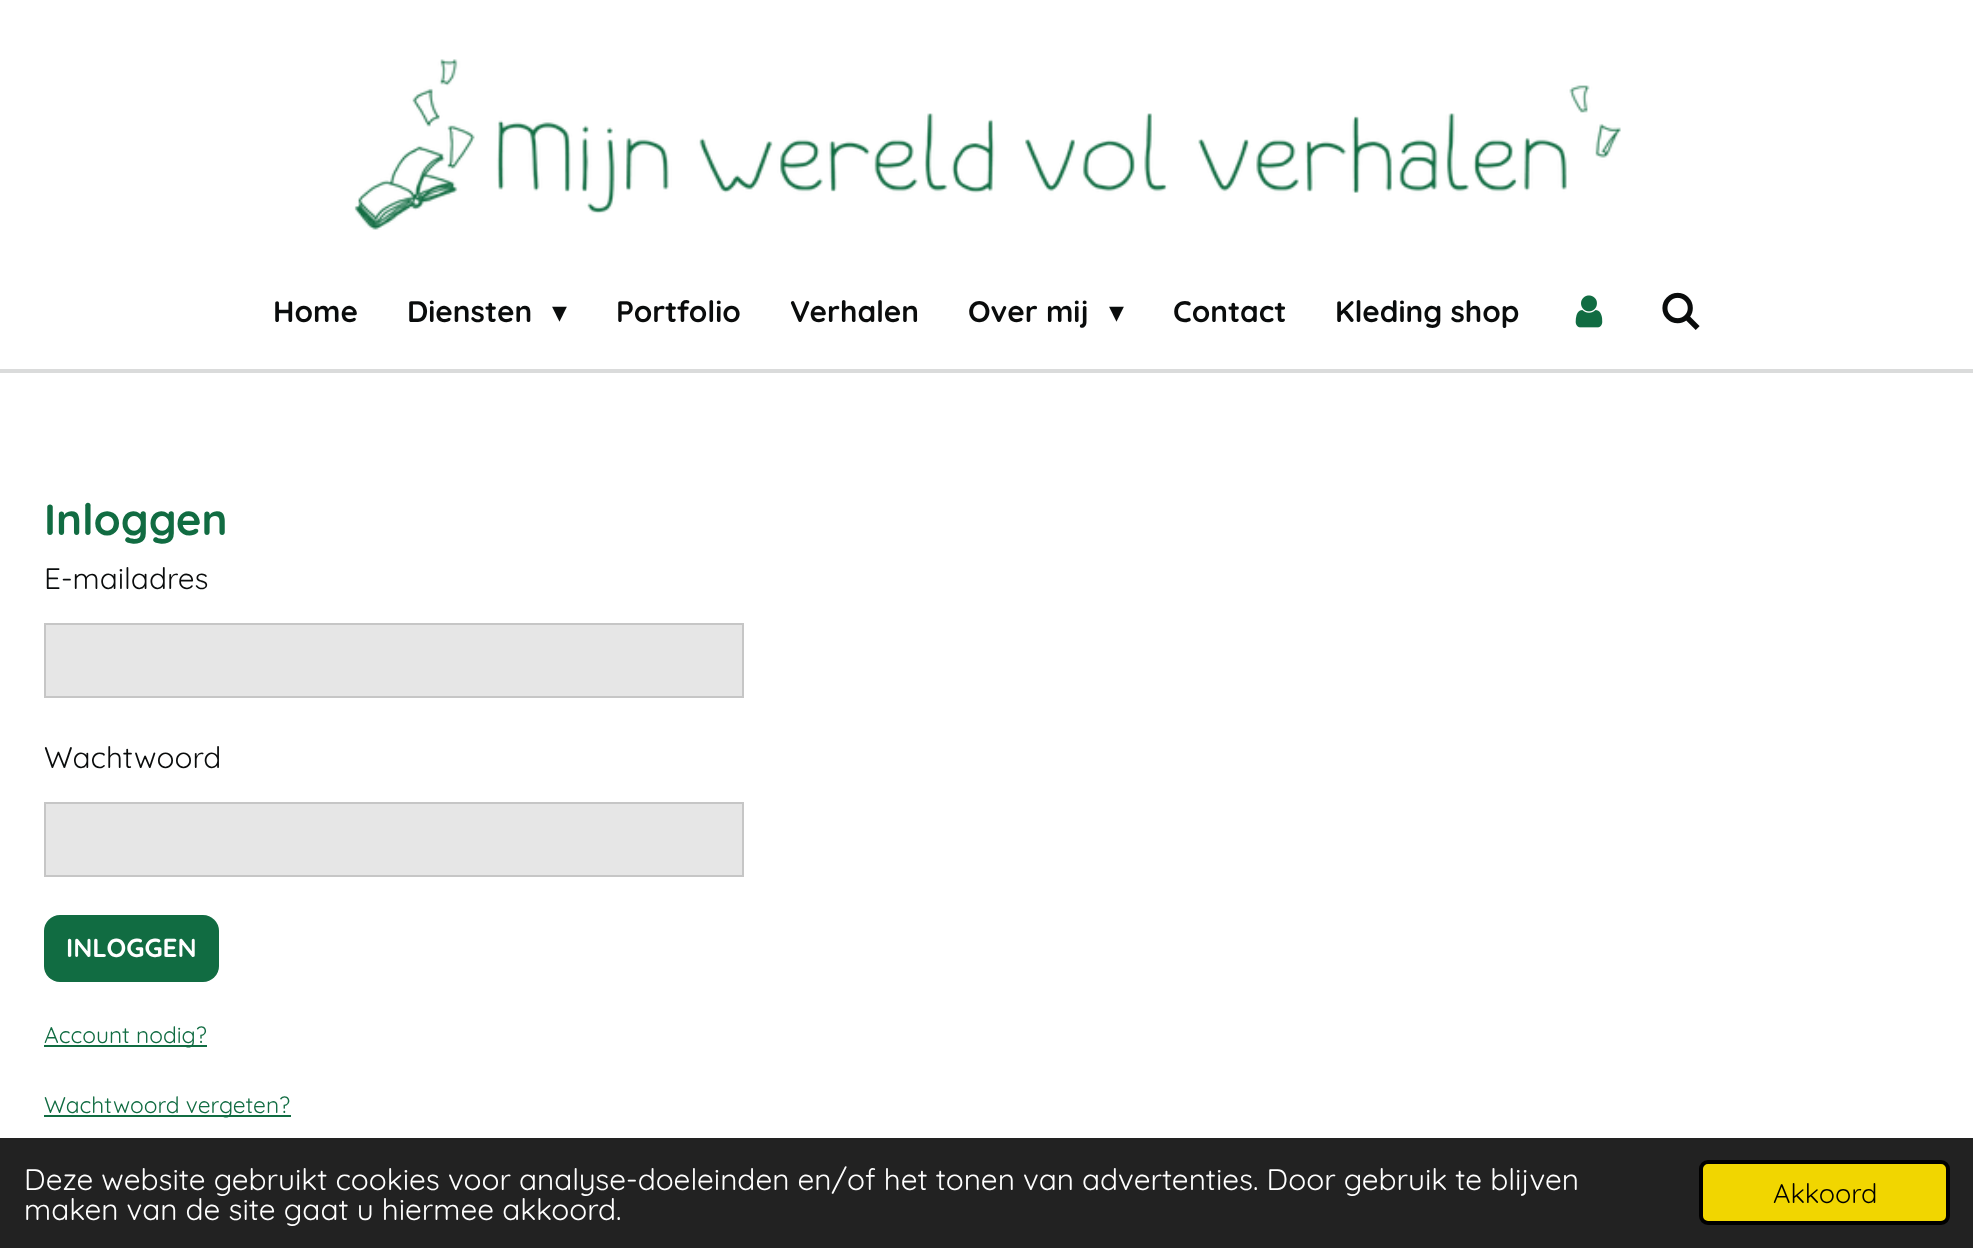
<!DOCTYPE html>
<meta charset="utf-8">
<style>body { margin: 0 } canvas { display: block }</style>
<canvas id="canvas" width="1973" height="1248"></canvas>
<img id="img1" src="images/1.png" hidden>
<img id="img2" src="images/2.png" hidden>
<img id="img3" src="images/3.png" hidden>
<script>
window.onload = function () {
    const canvas = document.getElementById('canvas');
    const context = canvas.getContext('2d');
    context.miterLimit = 4;
    context.fontKerning = 'normal';

    context.fillStyle = 'rgb(255, 255, 255)';
    context.fillRect(0, 0, 1973, 1248);
    context.drawImage(document.getElementById('img1'), 354, 59, 1267, 171);
    context.drawImage(document.getElementById('img2'), 1575, 295, 28, 33);
    context.drawImage(document.getElementById('img3'), 1662, 292, 38, 38);
    context.fillStyle = 'rgb(218, 219, 219)';
    context.fillRect(0, 369, 1973, 4);
    context.fillStyle = 'rgb(230, 230, 230)';
    context.beginPath();
    context.rect(45, 624, 698, 73);
    context.fill();
    context.strokeStyle = 'rgb(198, 198, 198)';
    context.lineWidth = 2;
    context.stroke();
    context.beginPath();
    context.rect(45, 803, 698, 73);
    context.fill();
    context.stroke();
    context.fillStyle = 'rgb(17, 108, 66)';
    context.beginPath();
    context.roundRect(44, 915, 175, 67, 16);
    context.fill();
    context.fillRect(44, 1045, 163, 2);
    context.fillRect(44, 1115, 247, 2);
    context.fillStyle = 'rgb(34, 34, 34)';
    context.fillRect(0, 1138, 1973, 110);
    context.fillStyle = 'rgb(241, 214, 0)';
    context.beginPath();
    context.roundRect(1701, 1162, 247, 61, 7);
    context.fill();
    context.strokeStyle = 'rgb(0, 0, 0)';
    context.lineWidth = 4;
    context.stroke();
    context.font = 'bold 29.75px Quicksand';
    context.fillStyle = 'rgb(10, 12, 12)';
    context.fillText('Home', 273, 322);
    context.fillText('Diensten', 407, 322);
    context.font = '29.75px DejaVu Sans';
    context.fillText('▾', 552, 322);
    context.font = 'bold 29.75px Quicksand';
    context.fillText('Portfolio', 616, 322);
    context.fillText('Verhalen', 790, 322);
    context.fillText('Over mij', 968, 322);
    context.font = '29.75px DejaVu Sans';
    context.fillText('▾', 1109, 322);
    context.font = 'bold 29.75px Quicksand';
    context.fillText('Contact', 1173, 322);
    context.fillText('Kleding shop', 1335, 322);
    context.font = 'bold 43.75px Quicksand';
    context.fillStyle = 'rgb(17, 108, 66)';
    context.fillText('Inloggen', 44, 535);
    context.font = '29.75px Quicksand';
    context.fillStyle = 'rgb(10, 12, 12)';
    context.fillText('E-mailadres', 44, 589);
    context.fillText('Wachtwoord', 44, 768);
    context.font = 'bold 26px Quicksand';
    context.fillStyle = 'rgb(255, 255, 255)';
    context.fillText('INLOGGEN', 66, 957);
    context.font = '22.75px Quicksand';
    context.fillStyle = 'rgb(17, 108, 66)';
    context.fillText('Account nodig?', 44, 1043);
    context.fillText('Wachtwoord vergeten?', 44, 1113);
    context.font = '29.75px Quicksand';
    context.fillStyle = 'rgb(255, 255, 255)';
    context.fillText('Deze website gebruikt cookies voor analyse-doeleinden en/of het tonen van advertenties. Door gebruik te blijven', 24, 1190);
    context.fillText('maken van de site gaat u hiermee akkoord.', 24, 1220);
    context.font = '27px Quicksand';
    context.fillStyle = 'rgb(0, 0, 0)';
    context.fillText('Akkoord', 1773, 1203);
};
</script>
